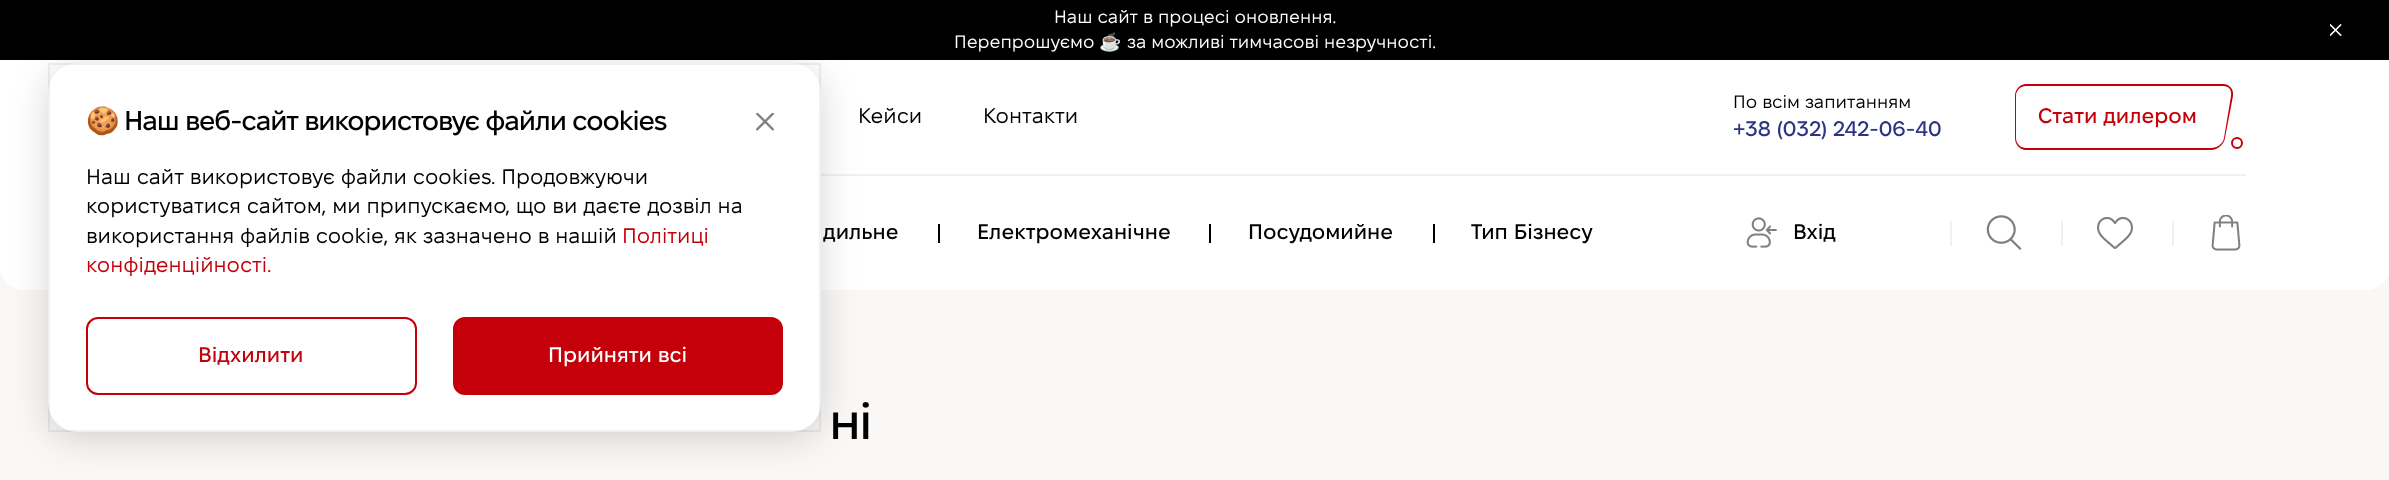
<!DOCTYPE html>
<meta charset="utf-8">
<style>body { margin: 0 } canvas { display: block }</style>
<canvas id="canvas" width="2389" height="480"></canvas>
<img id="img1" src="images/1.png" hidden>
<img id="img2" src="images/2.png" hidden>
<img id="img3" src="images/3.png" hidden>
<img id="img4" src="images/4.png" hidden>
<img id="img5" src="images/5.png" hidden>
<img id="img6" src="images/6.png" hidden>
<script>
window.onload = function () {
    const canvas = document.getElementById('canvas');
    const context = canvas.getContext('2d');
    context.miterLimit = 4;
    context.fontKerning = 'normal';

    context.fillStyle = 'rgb(249, 248, 246)';
    context.fillRect(0, 0, 2389, 480);
    context.fillStyle = 'rgb(255, 255, 255)';
    context.beginPath();
    context.moveTo(0, 0);
    context.lineTo(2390, 0);
    context.lineTo(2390, 266);
    context.bezierCurveTo(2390, 279.5, 2379.5, 290, 2366, 290);
    context.lineTo(24, 290);
    context.bezierCurveTo(10.5, 290, 0, 279.5, 0, 266);
    context.closePath();
    context.fill();
    context.fillStyle = 'rgb(0, 0, 0)';
    context.fillRect(0, 0, 2389, 60);
    context.fillStyle = 'rgb(240, 240, 240)';
    context.fillRect(821, 174, 1425, 2);
    context.fillStyle = 'rgba(0, 0, 0, 0.16)';
    context.filter = 'blur(18px)';
    context.beginPath();
    context.roundRect(48, 69, 773, 369, 30);
    context.fill();
    context.filter = 'none';
    context.fillStyle = 'rgb(255, 255, 255)';
    context.beginPath();
    context.roundRect(48, 63, 773, 369, 30);
    context.fill();
    context.strokeStyle = 'rgba(0, 0, 0, 0.06)';
    context.lineWidth = 2;
    context.strokeRect(49, 64, 771, 367);
    context.drawImage(document.getElementById('img1'), 756, 113, 18, 18);
    context.beginPath();
    context.roundRect(87, 318, 329, 76, 11);
    context.strokeStyle = 'rgb(196, 0, 10)';
    context.stroke();
    context.fillStyle = 'rgb(196, 0, 10)';
    context.beginPath();
    context.roundRect(454, 318, 328, 76, 11);
    context.fill();
    context.stroke();
    context.drawImage(document.getElementById('img2'), 2330, 24, 12, 12);
    context.beginPath();
    context.moveTo(2027, 84);
    context.lineTo(2223, 84);
    context.bezierCurveTo(2230, 84, 2234, 90, 2233, 96);
    context.lineTo(2225, 138);
    context.bezierCurveTo(2224, 144, 2218, 150, 2211, 150);
    context.lineTo(2027, 150);
    context.bezierCurveTo(2025, 150, 2022, 149, 2020, 148);
    context.lineTo(2211, 148);
    context.bezierCurveTo(2217, 148, 2223, 144, 2224, 138);
    context.lineTo(2231, 96);
    context.bezierCurveTo(2232, 90, 2229, 86, 2223, 86);
    context.lineTo(2020, 86);
    context.bezierCurveTo(2022, 85, 2025, 84, 2027, 84);
    context.closePath();
    context.fill();
    context.beginPath();
    context.moveTo(2026, 86);
    context.lineTo(2130, 86);
    context.lineTo(2130, 84);
    context.lineTo(2027, 84);
    context.bezierCurveTo(2020, 84, 2015, 89, 2015, 96);
    context.lineTo(2015, 138);
    context.bezierCurveTo(2015, 145, 2020, 150, 2027, 150);
    context.lineTo(2130, 150);
    context.lineTo(2130, 148);
    context.lineTo(2026, 148);
    context.bezierCurveTo(2021, 148, 2016, 144, 2016, 138);
    context.lineTo(2016, 96);
    context.bezierCurveTo(2016, 90, 2021, 86, 2026, 86);
    context.closePath();
    context.fill();
    context.beginPath();
    context.arc(2237, 143, 5, 0, 2 * Math.PI);
    context.stroke();
    context.fillStyle = 'rgb(0, 0, 0)';
    context.fillRect(938, 224, 2, 19);
    context.fillRect(1209, 224, 2, 19);
    context.fillRect(1433, 224, 2, 19);
    context.drawImage(document.getElementById('img3'), 1746, 217, 31, 31);
    context.fillStyle = 'rgb(240, 240, 240)';
    context.fillRect(1950, 221, 2, 25);
    context.drawImage(document.getElementById('img4'), 1986, 215, 36, 35);
    context.fillRect(2061, 221, 2, 25);
    context.drawImage(document.getElementById('img5'), 2097, 217, 36, 32);
    context.fillRect(2172, 221, 2, 25);
    context.drawImage(document.getElementById('img6'), 2211, 215, 30, 36);
    context.letterSpacing = '-1.1px';
    context.font = '27px Noto Color Emoji';
    context.fillStyle = 'rgb(0, 0, 0)';
    context.fillText('🍪', 86, 130);
    context.font = '500 27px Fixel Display';
    context.fillText('Наш веб-сайт використовує файли cookies', 124, 130);
    context.letterSpacing = '0px';
    context.font = '21px Fixel Display';
    context.fillText('Наш сайт використовує файли cookies. Продовжуючи', 86, 184);
    context.fillText('користуватися сайтом, ми припускаємо, що ви даєте дозвіл на', 86, 213);
    context.fillText('використання файлів cookie, як зазначено в нашій', 86, 243);
    context.fillStyle = 'rgb(196, 0, 10)';
    context.fillText('Політиці', 622, 243);
    context.fillText('конфіденційності.', 86, 272);
    context.font = '500 21px Fixel Display';
    context.fillText('Відхилити', 198, 362);
    context.fillStyle = 'rgb(255, 255, 255)';
    context.fillText('Прийняти всі', 548, 362);
    context.font = '18px Fixel Display';
    context.fillText('Наш сайт в процесі оновлення.', 1054, 23);
    context.fillText('Перепрошуємо', 954, 48);
    context.font = '18px Noto Color Emoji';
    context.fillText('☕', 1099, 48);
    context.font = '18px Fixel Display';
    context.fillText('за можливі тимчасові незручності.', 1127, 48);
    context.font = '21px Fixel Display';
    context.fillStyle = 'rgb(0, 0, 0)';
    context.fillText('Кейси', 858, 123);
    context.fillText('Контакти', 983, 123);
    context.font = '18px Fixel Display';
    context.fillText('По всім запитанням', 1733, 108);
    context.font = '500 21px Fixel Display';
    context.fillStyle = 'rgb(45, 52, 130)';
    context.fillText('+38 (032) 242-06-40', 1733, 136);
    context.fillStyle = 'rgb(196, 0, 10)';
    context.fillText('Стати дилером', 2038, 123);
    context.fillStyle = 'rgb(0, 0, 0)';
    context.fillText('дильне', 823, 239);
    context.fillText('Електромеханічне', 977, 239);
    context.fillText('Посудомийне', 1248, 239);
    context.fillText('Тип Бізнесу', 1471, 239);
    context.fillText('Вхід', 1793, 239);
    context.letterSpacing = '-2px';
    context.font = '500 51px Fixel Display';
    context.fillText('ні', 829, 439);
};
</script>
